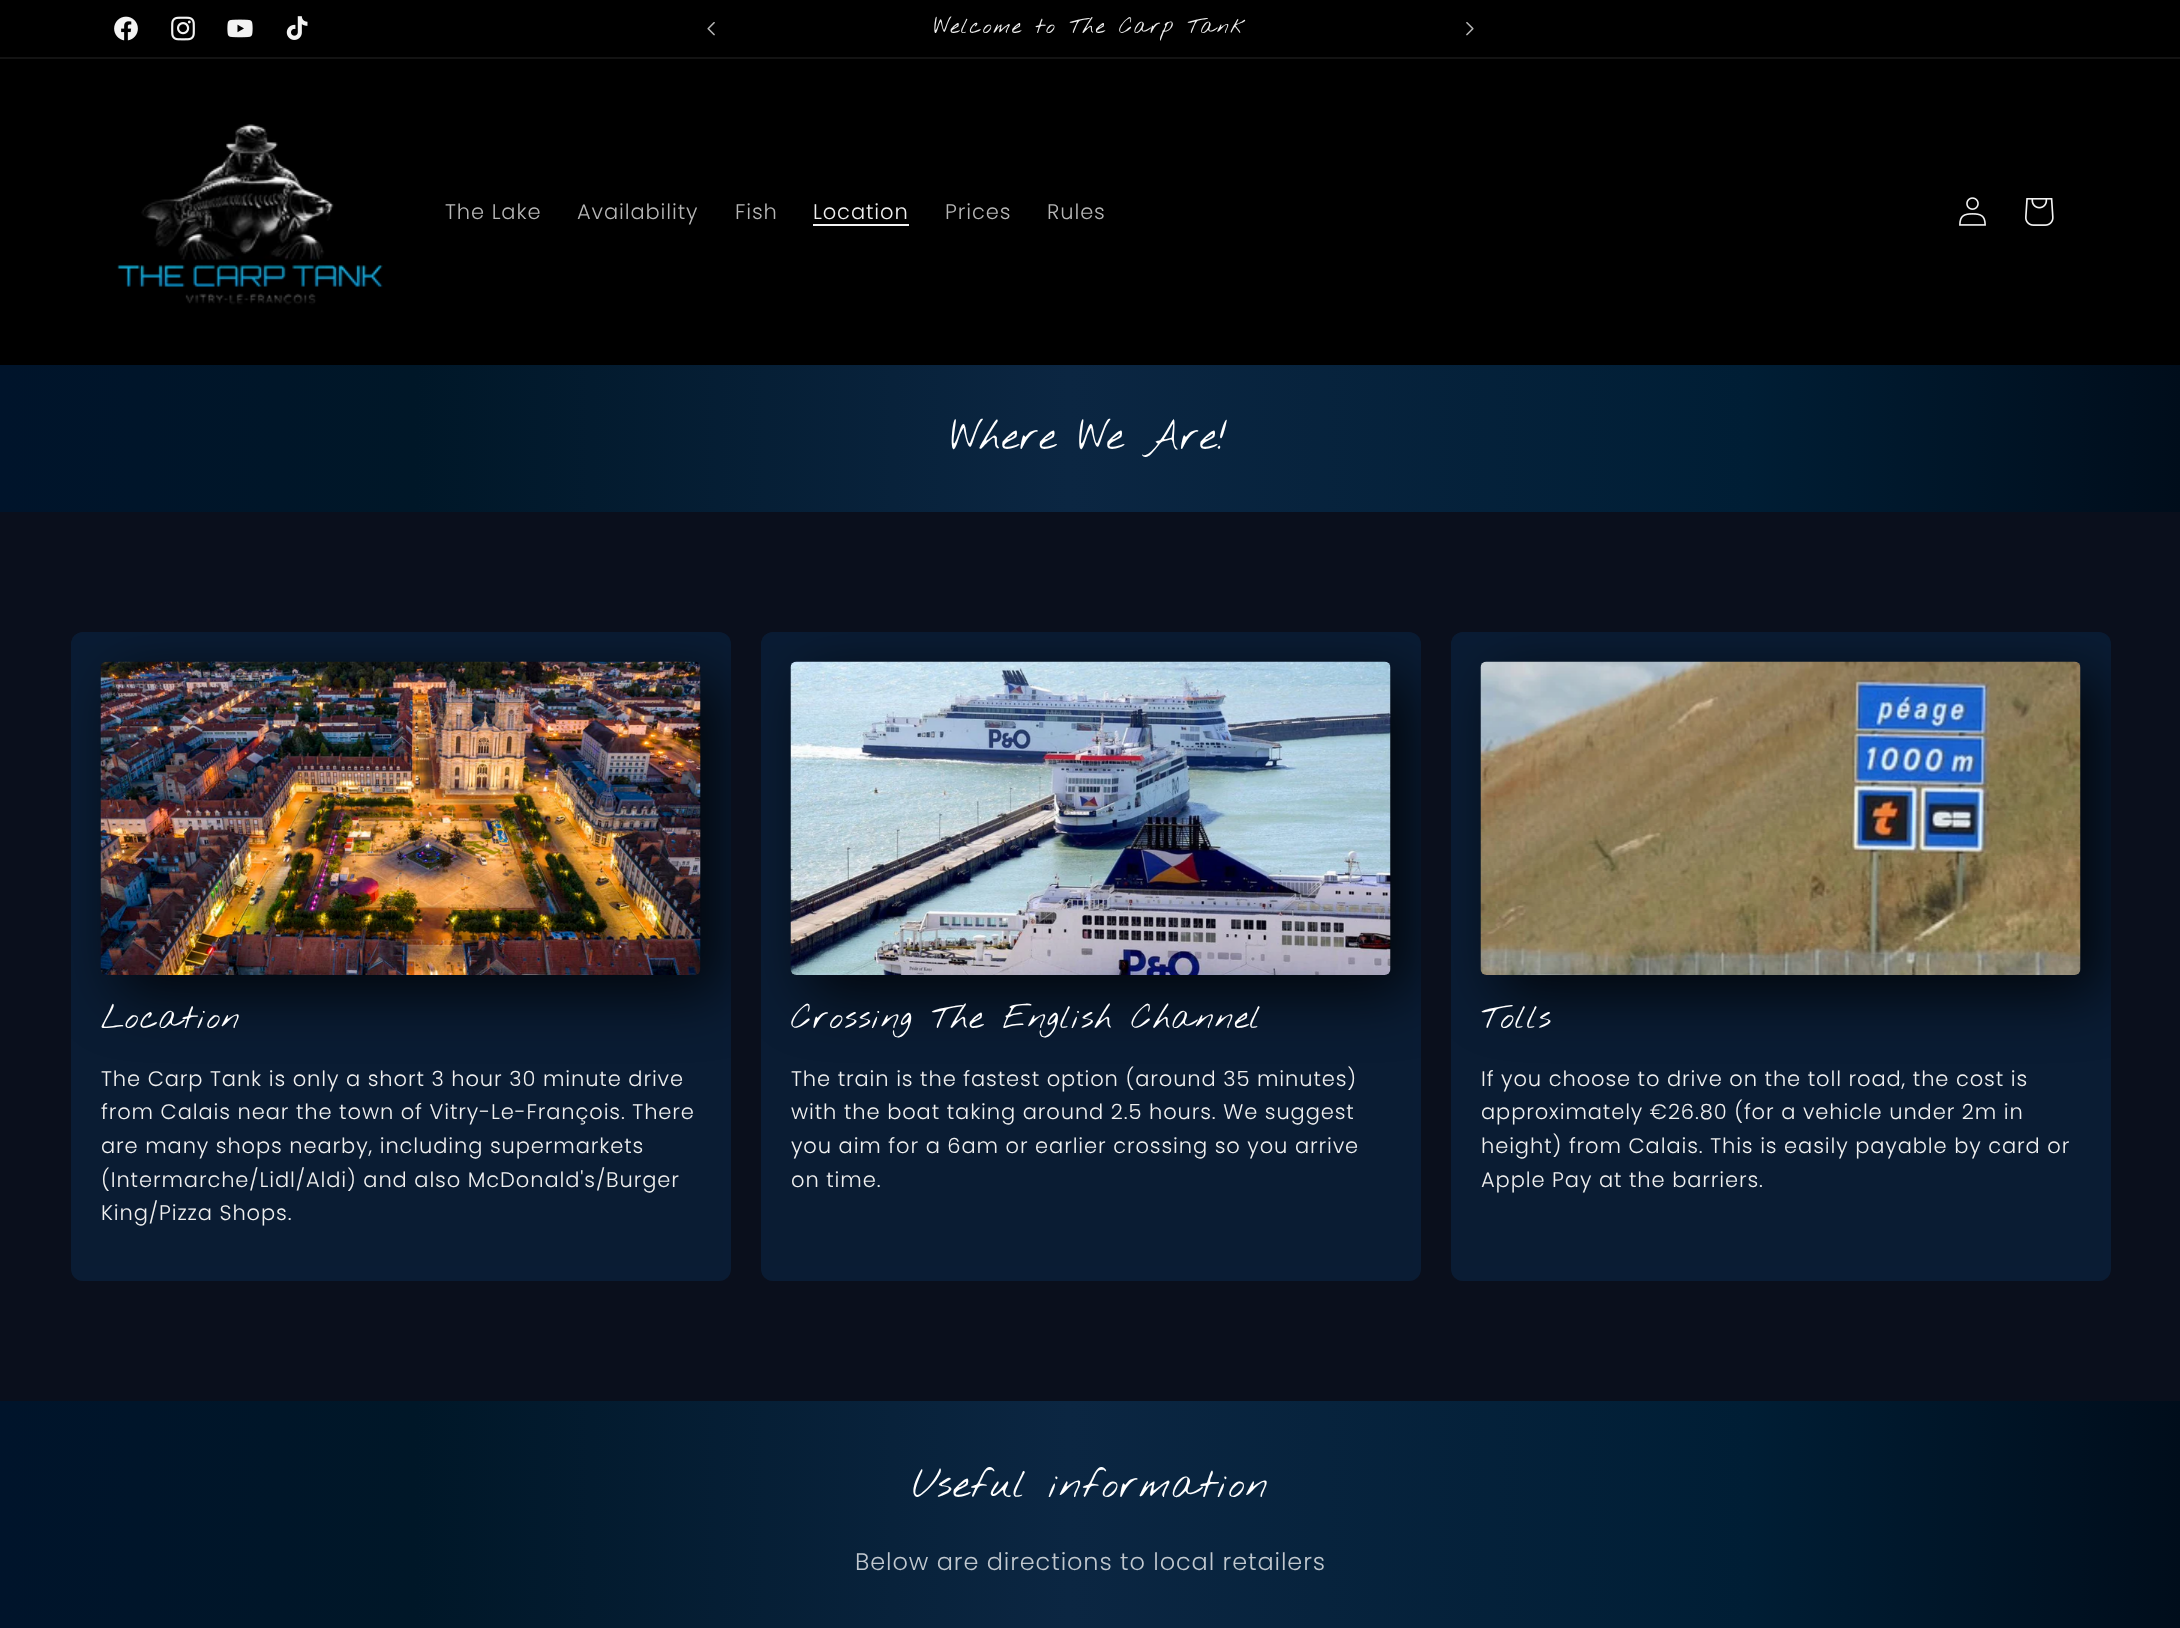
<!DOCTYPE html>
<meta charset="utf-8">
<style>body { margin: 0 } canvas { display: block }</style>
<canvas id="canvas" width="2180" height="1628"></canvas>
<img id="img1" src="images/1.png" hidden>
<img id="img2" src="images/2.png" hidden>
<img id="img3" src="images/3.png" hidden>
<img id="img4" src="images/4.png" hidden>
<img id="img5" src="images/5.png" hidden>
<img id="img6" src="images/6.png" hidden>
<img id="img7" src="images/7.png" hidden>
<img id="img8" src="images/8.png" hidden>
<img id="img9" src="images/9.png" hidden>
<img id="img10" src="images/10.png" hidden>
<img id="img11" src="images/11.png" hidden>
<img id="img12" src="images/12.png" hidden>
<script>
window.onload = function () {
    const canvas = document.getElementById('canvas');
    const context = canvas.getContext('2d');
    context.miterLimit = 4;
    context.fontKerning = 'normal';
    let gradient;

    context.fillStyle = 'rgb(10, 15, 28)';
    context.fillRect(0, 0, 2180, 1628);
    gradient = context.createLinearGradient(0, 815, 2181, 815);
    gradient.addColorStop(0, 'rgb(0, 20, 43)');
    gradient.addColorStop(0.19, 'rgb(0, 23, 40)');
    gradient.addColorStop(0.49, 'rgb(11, 38, 66)');
    gradient.addColorStop(0.8, 'rgb(0, 30, 53)');
    gradient.addColorStop(1, 'rgb(0, 13, 27)');
    context.fillStyle = gradient;
    context.fillRect(0, 365, 2180, 147);
    context.fillStyle = 'rgb(18, 24, 38)';
    context.beginPath();
    context.roundRect(71, 632, 660, 649, 12);
    context.fill();
    context.save();
    context.beginPath();
    context.roundRect(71, 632, 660, 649, 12);
    context.clip();
    context.fillStyle = 'rgba(0, 34, 73, 0.4)';
    context.filter = 'blur(150px)';
    context.beginPath();
    context.rect(-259, 306, 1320, 1299);
    context.fill();
    context.filter = 'none';
    context.restore();
    context.beginPath();
    context.roundRect(761, 632, 660, 649, 12);
    context.fill();
    context.save();
    context.beginPath();
    context.roundRect(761, 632, 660, 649, 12);
    context.clip();
    context.fillStyle = 'rgba(0, 34, 73, 0.4)';
    context.filter = 'blur(150px)';
    context.beginPath();
    context.rect(431, 306, 1320, 1299);
    context.fill();
    context.filter = 'none';
    context.restore();
    context.beginPath();
    context.roundRect(1451, 632, 660, 649, 12);
    context.fill();
    context.save();
    context.beginPath();
    context.roundRect(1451, 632, 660, 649, 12);
    context.clip();
    context.fillStyle = 'rgba(0, 34, 73, 0.4)';
    context.filter = 'blur(150px)';
    context.beginPath();
    context.rect(1121, 306, 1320, 1299);
    context.fill();
    context.filter = 'none';
    context.restore();
    context.fillStyle = 'rgb(0, 0, 0)';
    context.fillRect(0, 0, 2180, 57);
    context.fillStyle = 'rgb(19, 19, 19)';
    context.fillRect(0, 57, 2180, 2);
    context.drawImage(document.getElementById('img1'), 114, 16, 24, 25);
    context.drawImage(document.getElementById('img2'), 171, 16, 24, 25);
    context.drawImage(document.getElementById('img3'), 227, 19, 26, 19);
    context.drawImage(document.getElementById('img4'), 286, 16, 22, 24);
    context.drawImage(document.getElementById('img5'), 707, 22, 8, 14);
    context.drawImage(document.getElementById('img6'), 1466, 22, 8, 14);
    context.fillStyle = 'rgb(0, 0, 0)';
    context.fillRect(0, 59, 2180, 306);
    context.drawImage(document.getElementById('img7'), 117, 124, 266, 181);
    context.fillStyle = 'rgb(243, 243, 243)';
    context.fillRect(813, 224, 96, 2);
    context.drawImage(document.getElementById('img8'), 1959, 197, 27, 29);
    context.drawImage(document.getElementById('img9'), 2025, 198, 29, 28);
    context.save();
    context.beginPath();
    context.roundRect(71, 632, 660, 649, 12);
    context.clip();
    context.fillStyle = 'rgba(0, 0, 0, 0.8)';
    context.filter = 'blur(30px)';
    context.beginPath();
    context.roundRect(119, 680, 600, 313, 6);
    context.fill();
    context.filter = 'none';
    context.restore();
    context.drawImage(document.getElementById('img10'), 100, 661, 601, 314);
    context.save();
    context.beginPath();
    context.roundRect(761, 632, 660, 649, 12);
    context.clip();
    context.fillStyle = 'rgba(0, 0, 0, 0.8)';
    context.filter = 'blur(30px)';
    context.beginPath();
    context.roundRect(809, 680, 600, 313, 6);
    context.fill();
    context.filter = 'none';
    context.restore();
    context.drawImage(document.getElementById('img11'), 790, 661, 601, 314);
    context.save();
    context.beginPath();
    context.roundRect(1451, 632, 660, 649, 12);
    context.clip();
    context.fillStyle = 'rgba(0, 0, 0, 0.8)';
    context.filter = 'blur(30px)';
    context.beginPath();
    context.roundRect(1499, 680, 600, 313, 6);
    context.fill();
    context.filter = 'none';
    context.restore();
    context.drawImage(document.getElementById('img12'), 1480, 661, 601, 314);
    gradient = context.createLinearGradient(0, 815, 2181, 815);
    gradient.addColorStop(0, 'rgb(0, 20, 43)');
    gradient.addColorStop(0.19, 'rgb(0, 23, 40)');
    gradient.addColorStop(0.49, 'rgb(11, 38, 66)');
    gradient.addColorStop(0.8, 'rgb(0, 30, 53)');
    gradient.addColorStop(1, 'rgb(0, 13, 27)');
    context.fillStyle = gradient;
    context.fillRect(0, 1401, 2180, 227);
    context.letterSpacing = '1.5px';
    context.font = '21.5px Nothing You Could Do';
    context.fillStyle = 'rgb(240, 240, 240)';
    context.fillText('Welcome to The Carp Tank', 934, 33);
    context.letterSpacing = '0.9px';
    context.font = '300 21px Poppins';
    context.fillStyle = 'rgb(182, 182, 182)';
    context.fillText('The Lake', 445, 219);
    context.fillText('Availability', 577, 219);
    context.fillText('Fish', 735, 219);
    context.fillStyle = 'rgb(240, 240, 240)';
    context.fillText('Location', 813, 219);
    context.fillStyle = 'rgb(182, 182, 182)';
    context.fillText('Prices', 945, 219);
    context.fillText('Rules', 1047, 219);
    context.letterSpacing = '1px';
    context.font = '39.5px Nothing You Could Do';
    context.fillStyle = 'rgb(255, 255, 255)';
    context.fillText('Where We Are!', 951, 449);
    context.font = '33px Nothing You Could Do';
    context.fillText('Location', 101, 1028);
    context.letterSpacing = '0.9px';
    context.font = '300 21px Poppins';
    context.fillStyle = 'rgb(240, 240, 240)';
    context.fillText('The Carp Tank is only a short 3 hour 30 minute drive', 101, 1086);
    context.fillText('from Calais near the town of Vitry-Le-François. There', 101, 1119);
    context.fillText('are many shops nearby, including supermarkets', 101, 1153);
    context.fillText('(Intermarche/Lidl/Aldi) and also McDonald\'s/Burger', 101, 1187);
    context.fillText('King/Pizza Shops.', 101, 1220);
    context.letterSpacing = '1px';
    context.font = '33px Nothing You Could Do';
    context.fillStyle = 'rgb(255, 255, 255)';
    context.fillText('Crossing The English Channel', 791, 1028);
    context.letterSpacing = '0.9px';
    context.font = '300 21px Poppins';
    context.fillStyle = 'rgb(240, 240, 240)';
    context.fillText('The train is the fastest option (around 35 minutes)', 791, 1086);
    context.fillText('with the boat taking around 2.5 hours. We suggest', 791, 1119);
    context.fillText('you aim for a 6am or earlier crossing so you arrive', 791, 1153);
    context.fillText('on time.', 791, 1187);
    context.letterSpacing = '1px';
    context.font = '33px Nothing You Could Do';
    context.fillStyle = 'rgb(255, 255, 255)';
    context.fillText('Tolls', 1481, 1028);
    context.letterSpacing = '0.9px';
    context.font = '300 21px Poppins';
    context.fillStyle = 'rgb(240, 240, 240)';
    context.fillText('If you choose to drive on the toll road, the cost is', 1481, 1086);
    context.fillText('approximately €26.80 (for a vehicle under 2m in', 1481, 1119);
    context.fillText('height) from Calais. This is easily payable by card or', 1481, 1153);
    context.fillText('Apple Pay at the barriers.', 1481, 1187);
    context.letterSpacing = '1px';
    context.font = '39.5px Nothing You Could Do';
    context.fillStyle = 'rgb(255, 255, 255)';
    context.fillText('Useful information', 912, 1497);
    context.letterSpacing = '0.9px';
    context.font = '300 24px Poppins';
    context.fillStyle = 'rgb(193, 200, 207)';
    context.fillText('Below are directions to local retailers', 855, 1570);
};
</script>
